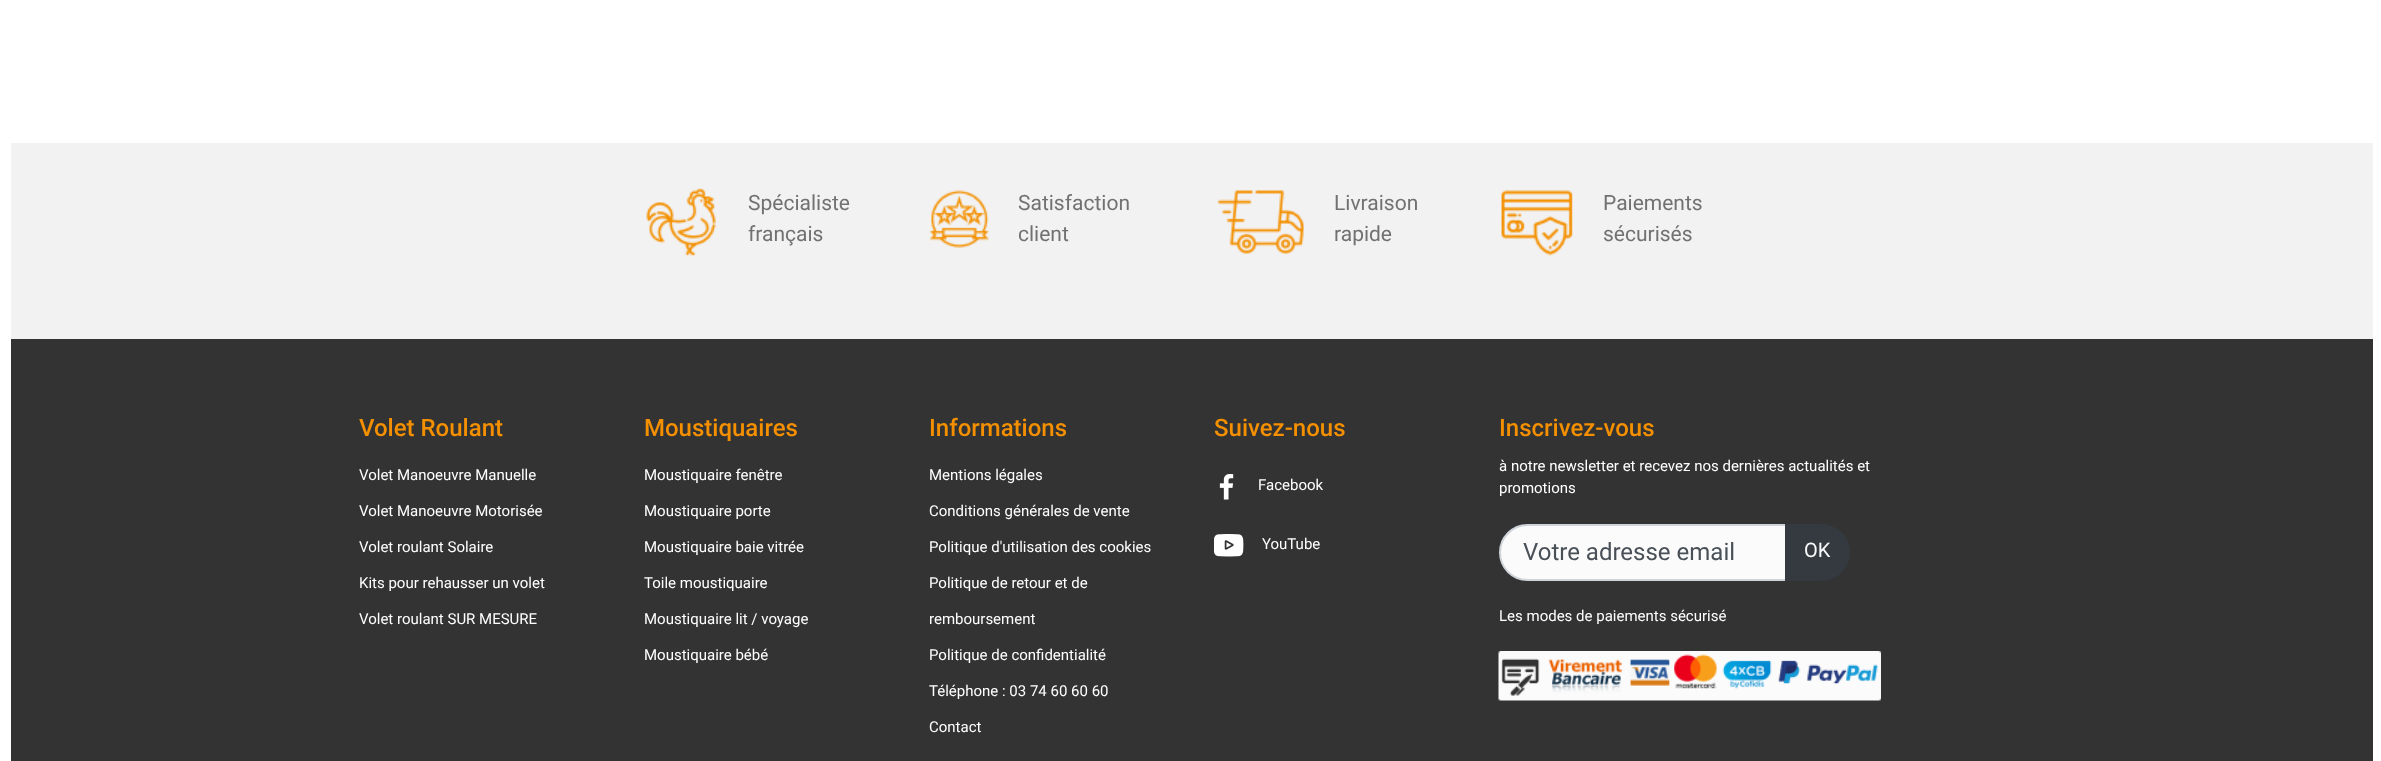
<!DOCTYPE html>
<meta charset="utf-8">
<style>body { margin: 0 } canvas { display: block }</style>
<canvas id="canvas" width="2381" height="761"></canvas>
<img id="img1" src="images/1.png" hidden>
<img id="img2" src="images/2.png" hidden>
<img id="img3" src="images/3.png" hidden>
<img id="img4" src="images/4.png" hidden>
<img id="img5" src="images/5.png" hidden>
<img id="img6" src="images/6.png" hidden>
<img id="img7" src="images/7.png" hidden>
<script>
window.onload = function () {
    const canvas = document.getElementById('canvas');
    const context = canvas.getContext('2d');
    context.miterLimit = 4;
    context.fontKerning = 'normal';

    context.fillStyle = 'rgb(255, 255, 255)';
    context.fillRect(0, 0, 2381, 761);
    context.fillStyle = 'rgb(242, 242, 242)';
    context.fillRect(11, 143, 2362, 196);
    context.drawImage(document.getElementById('img1'), 646, 188, 70, 68);
    context.drawImage(document.getElementById('img2'), 929, 190, 60, 58);
    context.drawImage(document.getElementById('img3'), 1217, 190, 87, 64);
    context.drawImage(document.getElementById('img4'), 1501, 190, 72, 66);
    context.fillStyle = 'rgb(51, 51, 51)';
    context.fillRect(11, 339, 2362, 422);
    context.drawImage(document.getElementById('img5'), 1219, 474, 15, 26);
    context.drawImage(document.getElementById('img6'), 1214, 534, 30, 23);
    context.fillStyle = 'rgb(251, 251, 251)';
    context.beginPath();
    context.roundRect(1500, 525, 286, 55, [27.5, 0, 0, 27.5]);
    context.fill();
    context.strokeStyle = 'rgb(206, 212, 218)';
    context.lineWidth = 2;
    context.stroke();
    context.fillStyle = 'rgb(52, 58, 64)';
    context.beginPath();
    context.roundRect(1785, 524, 65, 57, [0, 28.5, 28.5, 0]);
    context.fill();
    context.drawImage(document.getElementById('img7'), 1498, 651, 383, 50);
    context.font = '21px Roboto';
    context.fillStyle = 'rgb(112, 113, 112)';
    context.fillText('Spécialiste', 748, 210);
    context.fillText('français', 748, 241);
    context.fillText('Satisfaction', 1018, 210);
    context.fillText('client', 1018, 241);
    context.fillText('Livraison', 1334, 210);
    context.fillText('rapide', 1334, 241);
    context.fillText('Paiements', 1603, 210);
    context.fillText('sécurisés', 1603, 241);
    context.font = '500 24px Roboto';
    context.fillStyle = 'rgb(244, 144, 0)';
    context.fillText('Volet Roulant', 359, 436);
    context.font = '15px Roboto';
    context.fillStyle = 'rgb(255, 255, 255)';
    context.fillText('Volet Manoeuvre Manuelle', 359, 480);
    context.fillText('Volet Manoeuvre Motorisée', 359, 516);
    context.fillText('Volet roulant Solaire', 359, 552);
    context.fillText('Kits pour rehausser un volet', 359, 588);
    context.fillText('Volet roulant SUR MESURE', 359, 624);
    context.font = '500 24px Roboto';
    context.fillStyle = 'rgb(244, 144, 0)';
    context.fillText('Moustiquaires', 644, 436);
    context.font = '15px Roboto';
    context.fillStyle = 'rgb(255, 255, 255)';
    context.fillText('Moustiquaire fenêtre', 644, 480);
    context.fillText('Moustiquaire porte', 644, 516);
    context.fillText('Moustiquaire baie vitrée', 644, 552);
    context.fillText('Toile moustiquaire', 644, 588);
    context.fillText('Moustiquaire lit / voyage', 644, 624);
    context.fillText('Moustiquaire bébé', 644, 660);
    context.font = '500 24px Roboto';
    context.fillStyle = 'rgb(244, 144, 0)';
    context.fillText('Informations', 929, 436);
    context.font = '15px Roboto';
    context.fillStyle = 'rgb(255, 255, 255)';
    context.fillText('Mentions légales', 929, 480);
    context.fillText('Conditions générales de vente', 929, 516);
    context.fillText('Politique d\'utilisation des cookies', 929, 552);
    context.fillText('Politique de retour et de', 929, 588);
    context.fillText('remboursement', 929, 624);
    context.fillText('Politique de confidentialité', 929, 660);
    context.fillText('Téléphone : 03 74 60 60 60', 929, 696);
    context.fillText('Contact', 929, 732);
    context.font = '500 24px Roboto';
    context.fillStyle = 'rgb(244, 144, 0)';
    context.fillText('Suivez-nous', 1214, 436);
    context.font = '15px Roboto';
    context.fillStyle = 'rgb(255, 255, 255)';
    context.fillText('Facebook', 1258, 490);
    context.fillText('YouTube', 1262, 549);
    context.font = '500 24px Roboto';
    context.fillStyle = 'rgb(244, 144, 0)';
    context.fillText('Inscrivez-vous', 1499, 436);
    context.font = '15px Roboto';
    context.fillStyle = 'rgb(255, 255, 255)';
    context.fillText('à notre newsletter et recevez nos dernières actualités et', 1499, 471);
    context.fillText('promotions', 1499, 493);
    context.font = '24px Roboto';
    context.fillStyle = 'rgb(73, 80, 87)';
    context.fillText('Votre adresse email', 1523, 560);
    context.font = '20px Roboto';
    context.fillStyle = 'rgb(248, 249, 250)';
    context.fillText('OK', 1804, 557);
    context.font = '15px Roboto';
    context.fillStyle = 'rgb(255, 255, 255)';
    context.fillText('Les modes de paiements sécurisé', 1499, 621);
};
</script>
